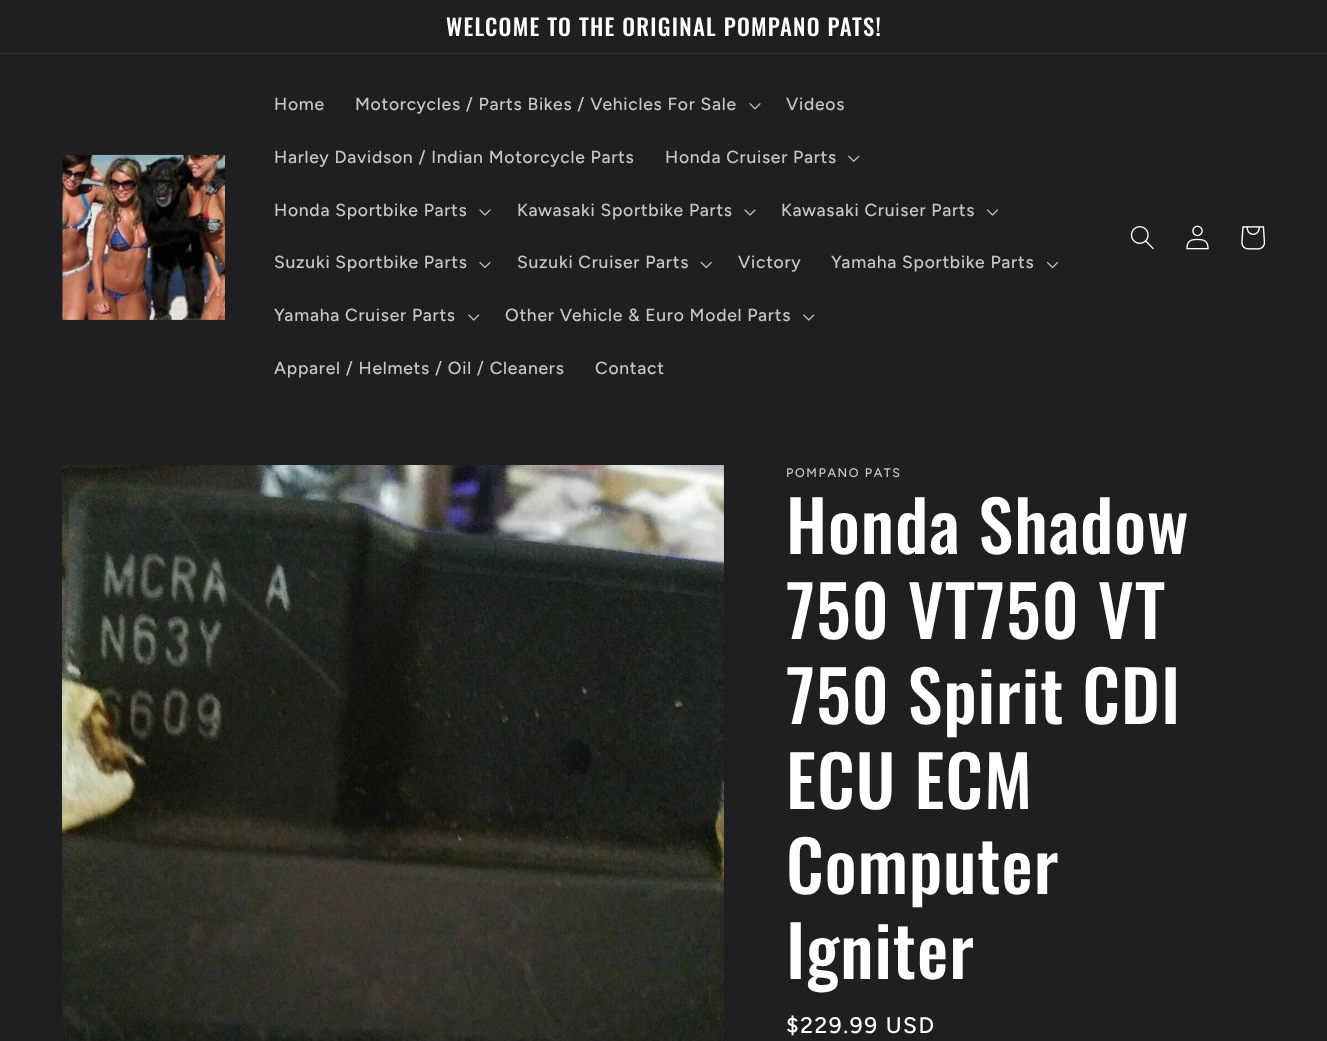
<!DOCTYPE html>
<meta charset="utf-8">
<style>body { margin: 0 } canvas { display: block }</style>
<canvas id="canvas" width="1327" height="1041"></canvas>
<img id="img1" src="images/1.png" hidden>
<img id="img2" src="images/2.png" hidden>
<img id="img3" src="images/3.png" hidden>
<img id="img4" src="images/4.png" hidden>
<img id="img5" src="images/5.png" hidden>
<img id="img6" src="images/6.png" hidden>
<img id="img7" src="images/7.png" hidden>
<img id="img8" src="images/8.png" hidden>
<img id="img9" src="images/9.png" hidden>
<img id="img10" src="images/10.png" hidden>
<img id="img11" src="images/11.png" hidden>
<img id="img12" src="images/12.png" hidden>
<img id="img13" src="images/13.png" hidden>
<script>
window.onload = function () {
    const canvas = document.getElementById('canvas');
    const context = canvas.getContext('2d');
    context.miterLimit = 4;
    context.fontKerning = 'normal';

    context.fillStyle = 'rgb(31, 31, 33)';
    context.fillRect(0, 0, 1327, 1041);
    context.fillStyle = 'rgb(49, 49, 51)';
    context.fillRect(0, 53, 1327, 1);
    context.drawImage(document.getElementById('img1'), 62, 154, 163, 166);
    context.drawImage(document.getElementById('img2'), 749, 103, 12, 7);
    context.drawImage(document.getElementById('img3'), 848, 155, 12, 7);
    context.drawImage(document.getElementById('img4'), 479, 209, 12, 7);
    context.drawImage(document.getElementById('img4'), 744, 209, 12, 7);
    context.drawImage(document.getElementById('img5'), 987, 209, 11, 7);
    context.drawImage(document.getElementById('img6'), 479, 262, 12, 6);
    context.drawImage(document.getElementById('img7'), 700, 261, 12, 8);
    context.drawImage(document.getElementById('img8'), 1046, 261, 13, 8);
    context.drawImage(document.getElementById('img9'), 468, 314, 12, 7);
    context.drawImage(document.getElementById('img9'), 803, 314, 12, 7);
    context.drawImage(document.getElementById('img10'), 1130, 226, 24, 24);
    context.drawImage(document.getElementById('img11'), 1186, 225, 23, 25);
    context.drawImage(document.getElementById('img12'), 1241, 226, 25, 24);
    context.drawImage(document.getElementById('img13'), 62, 465, 662, 576);
    context.letterSpacing = '1.25px';
    context.font = '500 22.75px Oswald';
    context.fillStyle = 'rgb(255, 255, 255)';
    context.fillText('WELCOME TO THE ORIGINAL POMPANO PATS!', 446, 36);
    context.letterSpacing = '0.75px';
    context.font = '500 17.5px Figtree';
    context.fillStyle = 'rgb(199, 199, 200)';
    context.fillText('Home', 274, 110);
    context.fillText('Motorcycles / Parts Bikes / Vehicles For Sale', 355, 110);
    context.fillText('Videos', 786, 110);
    context.fillText('Harley Davidson / Indian Motorcycle Parts', 274, 163);
    context.fillText('Honda Cruiser Parts', 665, 163);
    context.fillText('Honda Sportbike Parts', 274, 216);
    context.fillText('Kawasaki Sportbike Parts', 517, 216);
    context.fillText('Kawasaki Cruiser Parts', 781, 216);
    context.fillText('Suzuki Sportbike Parts', 274, 268);
    context.fillText('Suzuki Cruiser Parts', 517, 268);
    context.fillText('Victory', 738, 268);
    context.fillText('Yamaha Sportbike Parts', 831, 268);
    context.fillText('Yamaha Cruiser Parts', 274, 321);
    context.fillText('Other Vehicle & Euro Model Parts', 505, 321);
    context.fillText('Apparel / Helmets / Oil / Cleaners', 274, 374);
    context.fillText('Contact', 595, 374);
    context.letterSpacing = '1.6px';
    context.font = '500 12.5px Figtree';
    context.fillText('POMPANO PATS', 786, 477);
    context.letterSpacing = '1px';
    context.font = '500 70px Oswald';
    context.fillStyle = 'rgb(255, 255, 255)';
    context.fillText('Honda Shadow', 786, 554);
    context.fillText('750 VT750 VT', 786, 639);
    context.fillText('750 Spirit CDI', 786, 724);
    context.fillText('ECU ECM', 786, 809);
    context.fillText('Computer', 786, 894);
    context.fillText('Igniter', 786, 979);
    context.letterSpacing = '1.6px';
    context.font = '500 22.5px Figtree';
    context.fillText('$229.99 USD', 786, 1033);
};
</script>
